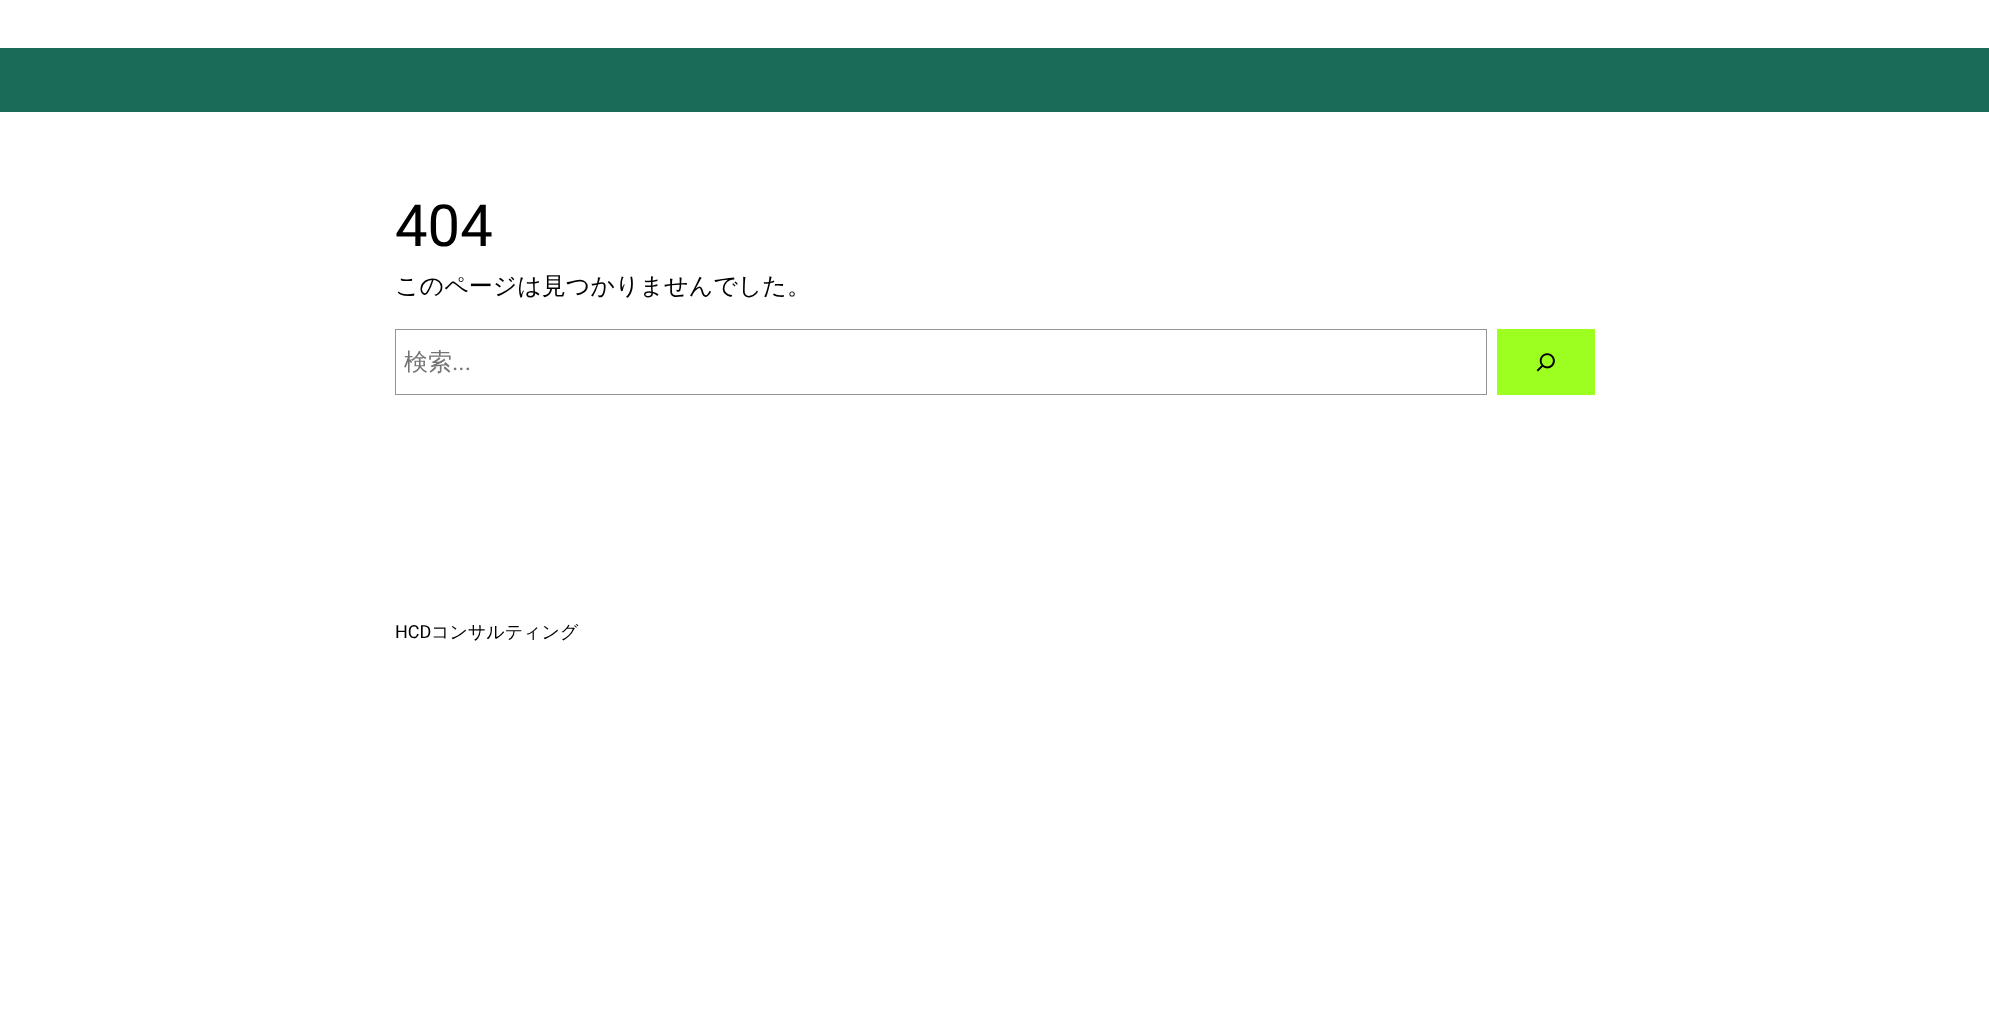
<!DOCTYPE html>
<meta charset="utf-8">
<style>body { margin: 0 } canvas { display: block }</style>
<canvas id="canvas" width="1989" height="1026"></canvas>
<img id="img1" src="images/1.png" hidden>
<script>
window.onload = function () {
    const canvas = document.getElementById('canvas');
    const context = canvas.getContext('2d');
    context.miterLimit = 4;
    context.fontKerning = 'normal';

    context.fillStyle = 'rgb(255, 255, 255)';
    context.fillRect(0, 0, 1989, 1026);
    context.fillStyle = 'rgb(26, 107, 87)';
    context.fillRect(0, 48, 1989, 64);
    context.strokeStyle = 'rgb(148, 148, 148)';
    context.strokeRect(395.5, 329.5, 1091, 65);
    context.fillStyle = 'rgb(157, 255, 32)';
    context.fillRect(1497, 329, 98, 66);
    context.drawImage(document.getElementById('img1'), 1536, 353, 19, 19);
    context.font = '58px Roboto';
    context.fillStyle = 'rgb(0, 0, 0)';
    context.fillText('404', 395, 246);
    context.font = '500 24px WenQuanYi Zen Hei';
    context.fillText('このページは見つかりませんでした。', 395, 294);
    context.fillStyle = 'rgb(117, 117, 117)';
    context.fillText('検索', 404, 370);
    context.font = '24px Roboto';
    context.fillText('...', 452, 370);
    context.font = '18px Roboto';
    context.fillStyle = 'rgb(0, 0, 0)';
    context.fillText('HCD', 395, 638);
    context.font = '500 18px WenQuanYi Zen Hei';
    context.fillText('コンサルティング', 431, 638);
};
</script>
